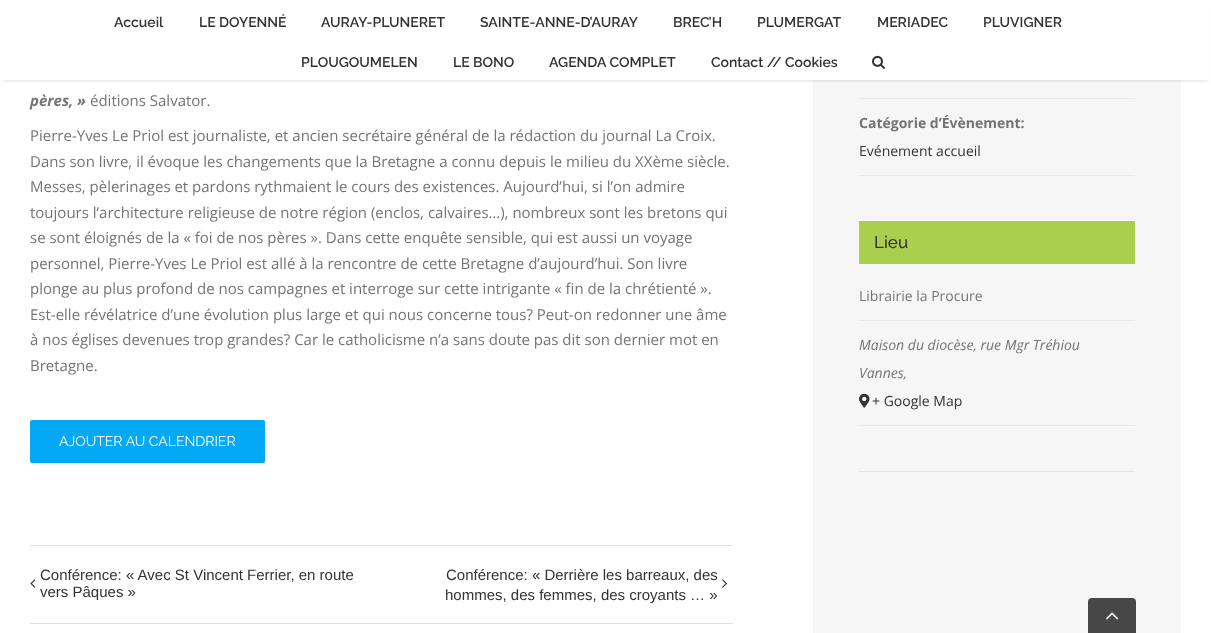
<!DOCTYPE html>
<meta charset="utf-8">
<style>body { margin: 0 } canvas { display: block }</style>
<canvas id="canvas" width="1211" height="633"></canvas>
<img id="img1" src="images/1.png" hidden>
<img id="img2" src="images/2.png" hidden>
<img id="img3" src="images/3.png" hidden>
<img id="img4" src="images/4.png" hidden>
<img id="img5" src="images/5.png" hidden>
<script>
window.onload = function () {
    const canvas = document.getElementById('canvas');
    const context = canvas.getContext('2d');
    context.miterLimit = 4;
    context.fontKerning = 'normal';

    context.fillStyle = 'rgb(255, 255, 255)';
    context.fillRect(0, 0, 1211, 633);
    context.fillStyle = 'rgb(246, 246, 246)';
    context.fillRect(813, 80, 368, 553);
    context.fillStyle = 'rgba(0, 0, 0, 0.12)';
    context.filter = 'blur(1.5px)';
    context.beginPath();
    context.rect(3, 7, 1205, 74);
    context.fill();
    context.filter = 'none';
    context.fillStyle = 'rgb(255, 255, 255)';
    context.fillRect(1, 5, 1209, 75);
    context.drawImage(document.getElementById('img1'), 872, 55, 13, 14);
    context.fillStyle = 'rgb(3, 169, 244)';
    context.beginPath();
    context.roundRect(30, 420, 235, 43, 2);
    context.fill();
    context.fillStyle = 'rgb(224, 222, 222)';
    context.fillRect(30, 545, 703, 1);
    context.fillRect(30, 623, 703, 1);
    context.drawImage(document.getElementById('img2'), 30, 579, 6, 9);
    context.drawImage(document.getElementById('img3'), 722, 579, 5, 9);
    context.fillStyle = 'rgb(232, 232, 232)';
    context.fillRect(859, 98, 276, 1);
    context.fillRect(859, 175, 276, 1);
    context.fillStyle = 'rgb(170, 206, 78)';
    context.fillRect(859, 221, 276, 43);
    context.fillStyle = 'rgb(232, 232, 232)';
    context.fillRect(859, 320, 276, 1);
    context.fillRect(859, 425, 276, 1);
    context.drawImage(document.getElementById('img4'), 859, 393, 11, 15);
    context.fillStyle = 'rgb(228, 228, 228)';
    context.fillRect(859, 471, 276, 1);
    context.fillStyle = 'rgb(71, 71, 71)';
    context.beginPath();
    context.roundRect(1088, 598, 48, 35, [4, 4, 0, 0]);
    context.fill();
    context.drawImage(document.getElementById('img5'), 1106, 612, 13, 8);
    context.font = '600 14px Raleway';
    context.fillStyle = 'rgb(51, 51, 51)';
    context.fillText('Accueil', 114, 27);
    context.fillText('LE DOYENNÉ', 199, 27);
    context.fillText('AURAY-PLUNERET', 321, 27);
    context.fillText('SAINTE-ANNE-D’AURAY', 480, 27);
    context.fillText('BREC’H', 673, 27);
    context.fillText('PLUMERGAT', 757, 27);
    context.fillText('MERIADEC', 877, 27);
    context.fillText('PLUVIGNER', 983, 27);
    context.fillText('PLOUGOUMELEN', 301, 67);
    context.fillText('LE BONO', 453, 67);
    context.fillText('AGENDA COMPLET', 549, 67);
    context.fillText('Contact // Cookies', 711, 67);
    context.font = 'italic bold 15px Open Sans';
    context.fillStyle = 'rgb(116, 116, 116)';
    context.fillText('pères, »', 30, 106);
    context.font = '15px Open Sans';
    context.fillText('éditions Salvator.', 90, 106);
    context.fillText('Pierre-Yves Le Priol est journaliste, et ancien secrétaire général de la rédaction du journal La Croix.', 30, 141);
    context.fillText('Dans son livre, il évoque les changements que la Bretagne a connu depuis le milieu du XXème siècle.', 30, 167);
    context.fillText('Messes, pèlerinages et pardons rythmaient le cours des existences. Aujourd’hui, si l’on admire', 30, 192);
    context.fillText('toujours l’architecture religieuse de notre région (enclos, calvaires…), nombreux sont les bretons qui', 30, 218);
    context.fillText('se sont éloignés de la « foi de nos pères ». Dans cette enquête sensible, qui est aussi un voyage', 30, 243);
    context.fillText('personnel, Pierre-Yves Le Priol est allé à la rencontre de cette Bretagne d’aujourd’hui. Son livre', 30, 269);
    context.fillText('plonge au plus profond de nos campagnes et interroge sur cette intrigante « fin de la chrétienté ».', 30, 294);
    context.fillText('Est-elle révélatrice d’une évolution plus large et qui nous concerne tous? Peut-on redonner une âme', 30, 320);
    context.fillText('à nos églises devenues trop grandes? Car le catholicisme n’a sans doute pas dit son dernier mot en', 30, 345);
    context.fillText('Bretagne.', 30, 371);
    context.font = '14px Raleway';
    context.fillStyle = 'rgb(255, 255, 255)';
    context.fillText('AJOUTER AU CALENDRIER', 59, 446);
    context.font = '15px Liberation Sans';
    context.fillStyle = 'rgb(51, 51, 51)';
    context.fillText('Conférence: « Avec St Vincent Ferrier, en route', 40, 580);
    context.fillText('vers Pâques »', 40, 597);
    context.fillText('Conférence: « Derrière les barreaux, des', 446, 580);
    context.fillText('hommes, des femmes, des croyants … »', 445, 600);
    context.font = 'bold 14px Open Sans';
    context.fillStyle = 'rgb(116, 116, 116)';
    context.fillText('Catégorie d’Évènement:', 859, 128);
    context.font = '14px Open Sans';
    context.fillStyle = 'rgb(51, 51, 51)';
    context.fillText('Evénement accueil', 859, 156);
    context.font = '500 17px Raleway';
    context.fillText('Lieu', 874, 248);
    context.font = '14px Open Sans';
    context.fillStyle = 'rgb(116, 116, 116)';
    context.fillText('Librairie la Procure', 859, 301);
    context.font = 'italic 14px Open Sans';
    context.fillText('Maison du diocèse, rue Mgr Tréhiou', 859, 350);
    context.fillText('Vannes,', 859, 378);
    context.font = '14px Open Sans';
    context.fillStyle = 'rgb(51, 51, 51)';
    context.fillText('+ Google Map', 872, 406);
};
</script>
